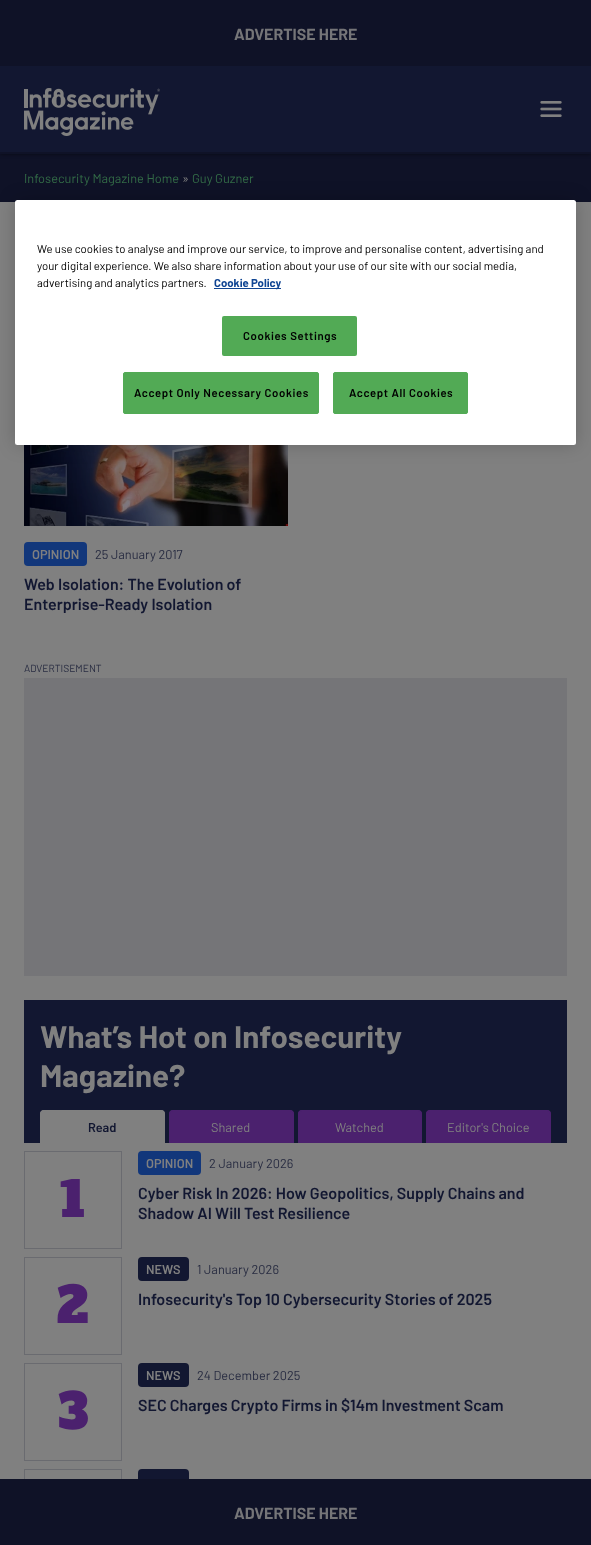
<!DOCTYPE html>
<meta charset="utf-8">
<style>body { margin: 0 } canvas { display: block }</style>
<canvas id="canvas" width="591" height="1545"></canvas>
<img id="img1" src="images/1.png" hidden>
<img id="img2" src="images/2.png" hidden>
<img id="img3" src="images/3.png" hidden>
<script>
window.onload = function () {
    const canvas = document.getElementById('canvas');
    const context = canvas.getContext('2d');
    context.miterLimit = 4;
    context.fontKerning = 'normal';

    context.fillStyle = 'rgb(128, 128, 128)';
    context.fillRect(0, 0, 591, 1545);
    context.fillStyle = 'rgb(15, 18, 39)';
    context.fillRect(0, 154, 591, 48);
    context.fillStyle = 'rgba(0, 0, 0, 0.5)';
    context.filter = 'blur(2px)';
    context.beginPath();
    context.rect(0, 66, 591, 88);
    context.fill();
    context.filter = 'none';
    context.fillStyle = 'rgb(15, 18, 39)';
    context.fillRect(0, 0, 591, 66);
    context.fillStyle = 'rgb(18, 23, 49)';
    context.fillRect(0, 66, 591, 86);
    context.fillStyle = 'rgb(15, 18, 39)';
    context.fillRect(0, 152, 591, 2);
    context.drawImage(document.getElementById('img1'), 24, 88, 136, 48);
    context.drawImage(document.getElementById('img2'), 540, 101, 22, 16);
    context.drawImage(document.getElementById('img3'), 24, 445, 264, 81);
    context.fillStyle = 'rgba(0, 0, 0, 0.2)';
    context.filter = 'blur(9px)';
    context.beginPath();
    context.roundRect(15, 200, 561, 245, 2.5);
    context.fill();
    context.filter = 'none';
    context.fillStyle = 'rgb(255, 255, 255)';
    context.beginPath();
    context.roundRect(15, 200, 561, 245, 2.5);
    context.fill();
    context.fillStyle = 'rgb(16, 69, 147)';
    context.fillRect(214, 288, 67, 1);
    context.fillStyle = 'rgb(82, 170, 85)';
    context.beginPath();
    context.roundRect(222, 316, 135, 40, 2);
    context.fill();
    context.beginPath();
    context.roundRect(123.5, 372.5, 195, 41, 1.5);
    context.fill();
    context.strokeStyle = 'rgb(82, 170, 85)';
    context.stroke();
    context.beginPath();
    context.roundRect(333.5, 372.5, 134, 41, 1.5);
    context.fill();
    context.stroke();
    context.fillStyle = 'rgb(18, 55, 123)';
    context.beginPath();
    context.roundRect(24, 542, 63, 24, 4);
    context.fill();
    context.fillStyle = 'rgb(117, 117, 120)';
    context.fillRect(24, 678, 543, 298);
    context.fillStyle = 'rgb(18, 23, 49)';
    context.fillRect(24, 1000, 543, 143);
    context.fillStyle = 'rgb(128, 128, 128)';
    context.beginPath();
    context.roundRect(40, 1110, 125, 33, [4, 4, 0, 0]);
    context.fill();
    context.beginPath();
    context.moveTo(44, 1110);
    context.lineTo(161, 1110);
    context.bezierCurveTo(163, 1110, 165, 1112, 165, 1114);
    context.lineTo(165, 1143);
    context.lineTo(40, 1143);
    context.lineTo(40, 1114);
    context.bezierCurveTo(40, 1112, 42, 1110, 44, 1110);
    context.closePath();
    context.moveTo(44, 1111);
    context.lineTo(161, 1111);
    context.bezierCurveTo(163, 1111, 164, 1112, 164, 1114);
    context.lineTo(164, 1143);
    context.lineTo(41, 1143);
    context.lineTo(41, 1114);
    context.bezierCurveTo(41, 1112, 42, 1111, 44, 1111);
    context.closePath();
    context.fill('evenodd');
    context.fillStyle = 'rgb(75, 33, 110)';
    context.beginPath();
    context.roundRect(169, 1110, 125, 33, [4, 4, 0, 0]);
    context.fill();
    context.beginPath();
    context.moveTo(173, 1110);
    context.lineTo(290, 1110);
    context.bezierCurveTo(292, 1110, 294, 1112, 294, 1114);
    context.lineTo(294, 1143);
    context.lineTo(169, 1143);
    context.lineTo(169, 1114);
    context.bezierCurveTo(169, 1112, 171, 1110, 173, 1110);
    context.closePath();
    context.moveTo(173, 1111);
    context.lineTo(290, 1111);
    context.bezierCurveTo(292, 1111, 293, 1112, 293, 1114);
    context.lineTo(293, 1143);
    context.lineTo(170, 1143);
    context.lineTo(170, 1114);
    context.bezierCurveTo(170, 1112, 171, 1111, 173, 1111);
    context.closePath();
    context.fill('evenodd');
    context.beginPath();
    context.roundRect(298, 1110, 124, 33, [4, 4, 0, 0]);
    context.fill();
    context.beginPath();
    context.moveTo(302, 1110);
    context.lineTo(418, 1110);
    context.bezierCurveTo(420, 1110, 422, 1112, 422, 1114);
    context.lineTo(422, 1143);
    context.lineTo(298, 1143);
    context.lineTo(298, 1114);
    context.bezierCurveTo(298, 1112, 300, 1110, 302, 1110);
    context.closePath();
    context.moveTo(302, 1111);
    context.lineTo(418, 1111);
    context.bezierCurveTo(420, 1111, 421, 1112, 421, 1114);
    context.lineTo(421, 1143);
    context.lineTo(299, 1143);
    context.lineTo(299, 1114);
    context.bezierCurveTo(299, 1112, 300, 1111, 302, 1111);
    context.closePath();
    context.fill('evenodd');
    context.beginPath();
    context.roundRect(426, 1110, 125, 33, [4, 4, 0, 0]);
    context.fill();
    context.beginPath();
    context.moveTo(430, 1110);
    context.lineTo(547, 1110);
    context.bezierCurveTo(549, 1110, 551, 1112, 551, 1114);
    context.lineTo(551, 1143);
    context.lineTo(426, 1143);
    context.lineTo(426, 1114);
    context.bezierCurveTo(426, 1112, 428, 1110, 430, 1110);
    context.closePath();
    context.moveTo(430, 1111);
    context.lineTo(547, 1111);
    context.bezierCurveTo(549, 1111, 550, 1112, 550, 1114);
    context.lineTo(550, 1143);
    context.lineTo(427, 1143);
    context.lineTo(427, 1114);
    context.bezierCurveTo(427, 1112, 428, 1111, 430, 1111);
    context.closePath();
    context.fill('evenodd');
    context.strokeStyle = 'rgb(106, 107, 112)';
    context.strokeRect(24.5, 1151.5, 97, 97);
    context.fillStyle = 'rgb(18, 55, 123)';
    context.beginPath();
    context.roundRect(138, 1151, 63, 24, 4);
    context.fill();
    context.strokeRect(24.5, 1257.5, 97, 97);
    context.fillStyle = 'rgb(18, 23, 49)';
    context.beginPath();
    context.roundRect(138, 1257, 51, 24, 4);
    context.fill();
    context.strokeRect(24.5, 1363.5, 97, 97);
    context.beginPath();
    context.roundRect(138, 1363, 51, 24, 4);
    context.fill();
    context.strokeRect(24.5, 1469.5, 97, 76);
    context.beginPath();
    context.roundRect(138, 1469, 51, 24, 4);
    context.fill();
    context.fillStyle = 'rgb(15, 18, 39)';
    context.fillRect(0, 1479, 591, 66);
    context.font = 'bold 16px Barlow';
    context.fillStyle = 'rgb(117, 117, 120)';
    context.fillText('ADVERTISE HERE', 234, 40);
    context.font = '12.75px Barlow';
    context.fillStyle = 'rgb(51, 108, 71)';
    context.fillText('Infosecurity Magazine Home', 24, 183);
    context.fillStyle = 'rgb(128, 128, 128)';
    context.fillText('»', 182, 183);
    context.fillStyle = 'rgb(51, 108, 71)';
    context.fillText('Guy Guzner', 192, 183);
    context.font = '11.4px Barlow';
    context.fillStyle = 'rgb(0, 0, 0)';
    context.fillText('We use cookies to analyse and improve our service, to improve and personalise content, advertising and', 37, 253);
    context.fillText('your digital experience. We also share information about your use of our site with our social media,', 37, 270);
    context.fillText('advertising and analytics partners.', 37, 287);
    context.font = 'bold 11.4px Barlow';
    context.fillStyle = 'rgb(16, 69, 147)';
    context.fillText('Cookie Policy', 214, 287);
    context.letterSpacing = '0.6px';
    context.font = '600 11.4px Barlow';
    context.fillStyle = 'rgb(0, 0, 0)';
    context.fillText('Cookies Settings', 243, 340);
    context.fillText('Accept Only Necessary Cookies', 134, 397);
    context.fillText('Accept All Cookies', 349, 397);
    context.letterSpacing = '0px';
    context.font = '600 12.75px Barlow';
    context.fillStyle = 'rgb(128, 128, 128)';
    context.fillText('OPINION', 32, 559);
    context.font = '12.75px Barlow';
    context.fillStyle = 'rgb(40, 44, 65)';
    context.fillText('25 January 2017', 95, 559);
    context.font = '600 16px Barlow';
    context.fillStyle = 'rgb(18, 23, 49)';
    context.fillText('Web Isolation: The Evolution of', 24, 590);
    context.fillText('Enterprise-Ready Isolation', 24, 610);
    context.font = '10.25px Barlow';
    context.fillStyle = 'rgb(40, 44, 65)';
    context.fillText('ADVERTISEMENT', 24, 672);
    context.font = 'bold 31.25px Barlow';
    context.fillStyle = 'rgb(128, 128, 128)';
    context.fillText('What’s Hot on Infosecurity', 40, 1048);
    context.fillText('Magazine?', 40, 1087);
    context.font = '600 12.75px Barlow';
    context.fillStyle = 'rgb(18, 23, 49)';
    context.fillText('Read', 88, 1132);
    context.font = '12.75px Barlow';
    context.fillStyle = 'rgb(128, 128, 128)';
    context.fillText('Shared', 211, 1132);
    context.fillText('Watched', 335, 1132);
    context.fillText('Editor\'s Choice', 447, 1132);
    context.font = '49px Alfa Slab One';
    context.fillStyle = 'rgb(75, 33, 110)';
    context.fillText('1', 60, 1217);
    context.font = '600 12.75px Barlow';
    context.fillStyle = 'rgb(128, 128, 128)';
    context.fillText('OPINION', 146, 1168);
    context.font = '12.75px Barlow';
    context.fillStyle = 'rgb(40, 44, 65)';
    context.fillText('2 January 2026', 209, 1168);
    context.font = '600 16px Barlow';
    context.fillStyle = 'rgb(18, 23, 49)';
    context.fillText('Cyber Risk In 2026: How Geopolitics, Supply Chains and', 138, 1199);
    context.fillText('Shadow AI Will Test Resilience', 138, 1219);
    context.font = '49px Alfa Slab One';
    context.fillStyle = 'rgb(75, 33, 110)';
    context.fillText('2', 57, 1323);
    context.font = '600 12.75px Barlow';
    context.fillStyle = 'rgb(128, 128, 128)';
    context.fillText('NEWS', 146, 1274);
    context.font = '12.75px Barlow';
    context.fillStyle = 'rgb(40, 44, 65)';
    context.fillText('1 January 2026', 197, 1274);
    context.font = '600 16px Barlow';
    context.fillStyle = 'rgb(18, 23, 49)';
    context.fillText('Infosecurity\'s Top 10 Cybersecurity Stories of 2025', 138, 1305);
    context.font = '49px Alfa Slab One';
    context.fillStyle = 'rgb(75, 33, 110)';
    context.fillText('3', 58, 1429);
    context.font = '600 12.75px Barlow';
    context.fillStyle = 'rgb(128, 128, 128)';
    context.fillText('NEWS', 146, 1380);
    context.font = '12.75px Barlow';
    context.fillStyle = 'rgb(40, 44, 65)';
    context.fillText('24 December 2025', 197, 1380);
    context.font = '600 16px Barlow';
    context.fillStyle = 'rgb(18, 23, 49)';
    context.fillText('SEC Charges Crypto Firms in $14m Investment Scam', 138, 1411);
    context.font = 'bold 16px Barlow';
    context.fillStyle = 'rgb(117, 117, 120)';
    context.fillText('ADVERTISE HERE', 234, 1519);
};
</script>
